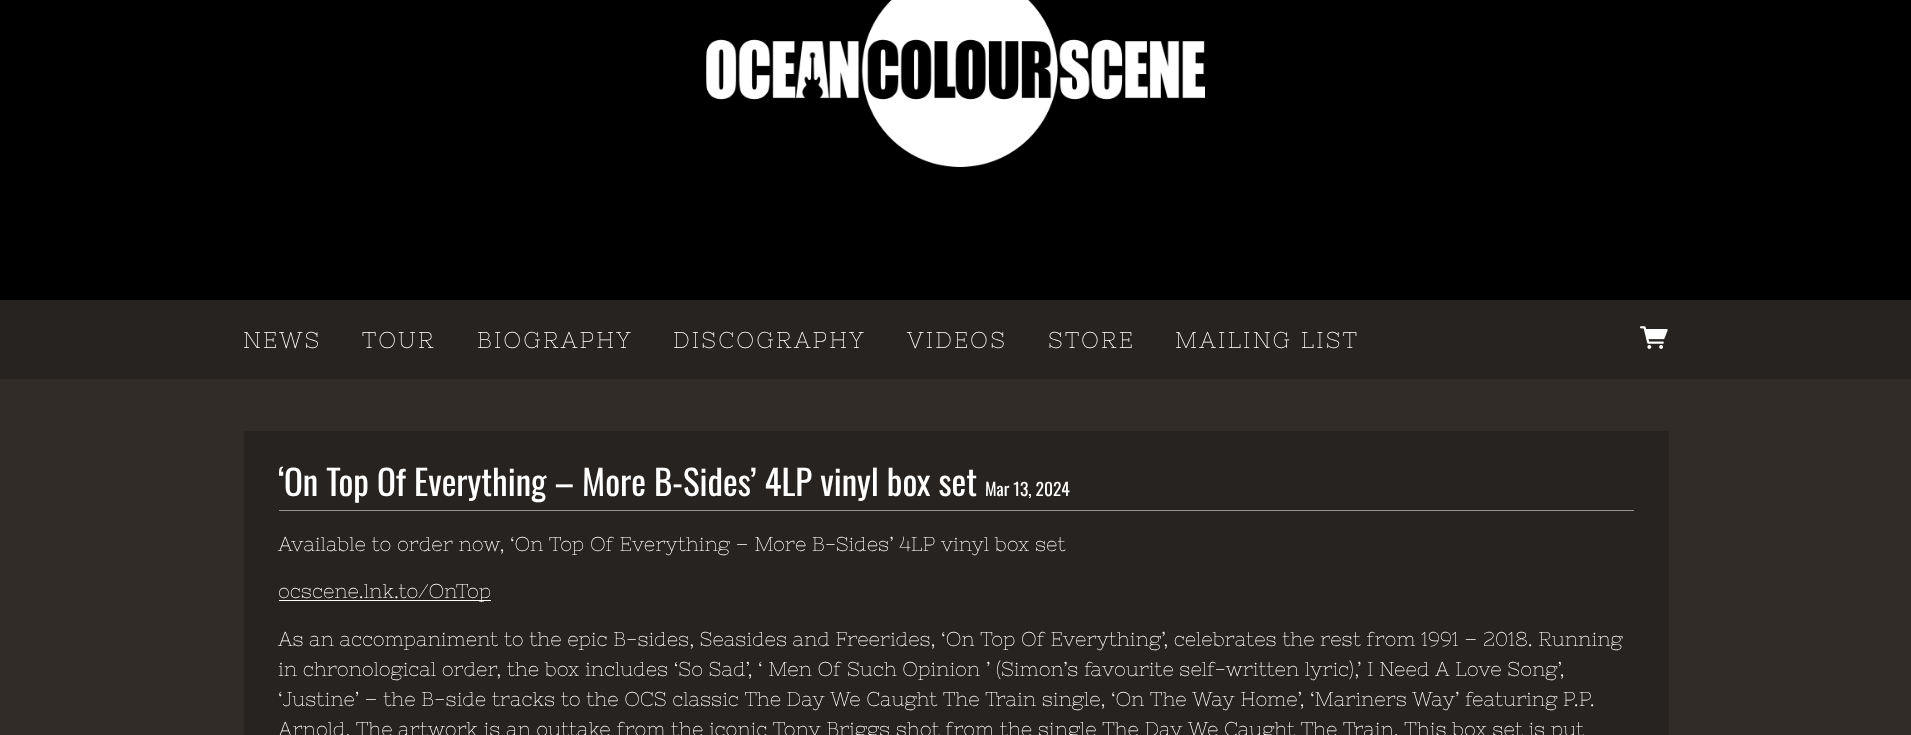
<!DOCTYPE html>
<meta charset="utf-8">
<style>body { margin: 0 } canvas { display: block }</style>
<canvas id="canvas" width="1911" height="735"></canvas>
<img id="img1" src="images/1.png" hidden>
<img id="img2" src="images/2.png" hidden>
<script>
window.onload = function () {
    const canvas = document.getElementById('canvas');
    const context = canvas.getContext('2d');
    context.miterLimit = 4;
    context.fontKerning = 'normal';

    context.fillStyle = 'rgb(0, 0, 0)';
    context.fillRect(0, 0, 1911, 735);
    context.drawImage(document.getElementById('img1'), 706, 0, 499, 167);
    context.fillStyle = 'rgb(39, 35, 32)';
    context.fillRect(0, 300, 1911, 79);
    context.drawImage(document.getElementById('img2'), 1640, 326, 28, 23);
    context.fillStyle = 'rgb(49, 44, 40)';
    context.fillRect(0, 379, 1911, 356);
    context.fillStyle = 'rgb(39, 35, 32)';
    context.fillRect(244, 431, 1425, 304);
    context.fillStyle = 'rgb(147, 145, 144)';
    context.fillRect(279, 510, 1355, 1);
    context.fillStyle = 'rgb(255, 255, 255)';
    context.fillRect(279, 600, 212, 1);
    context.letterSpacing = '2.25px';
    context.font = '22.75px Nixie One';
    context.fillText('NEWS', 243, 348);
    context.fillText('TOUR', 362, 348);
    context.fillText('BIOGRAPHY', 477, 348);
    context.fillText('DISCOGRAPHY', 673, 348);
    context.fillText('VIDEOS', 907, 348);
    context.fillText('STORE', 1048, 348);
    context.fillText('MAILING LIST', 1175, 348);
    context.letterSpacing = '0px';
    context.font = '35px Oswald';
    context.fillText('‘On Top Of Everything – More B-Sides’ 4LP vinyl box set', 278, 496);
    context.font = '17.5px Oswald';
    context.fillText('Mar 13, 2024', 985, 496);
    context.font = '20px Nixie One';
    context.fillText('Available to order now, ‘On Top Of Everything – More B-Sides’ 4LP vinyl box set', 278, 551);
    context.fillText('ocscene.lnk.to/OnTop', 278, 598);
    context.fillText('As an accompaniment to the epic B-sides, Seasides and Freerides, ‘On Top Of Everything’, celebrates the rest from 1991 – 2018. Running', 278, 646);
    context.fillText('in chronological order, the box includes ‘So Sad’, ‘ Men Of Such Opinion ’ (Simon’s favourite self-written lyric),’ I Need A Love Song’,', 278, 676);
    context.fillText('‘Justine’ – the B-side tracks to the OCS classic The Day We Caught The Train single, ‘On The Way Home’, ‘Mariners Way’ featuring P.P.', 278, 706);
    context.fillText('Arnold. The artwork is an outtake from the iconic Tony Briggs shot from the single The Day We Caught The Train. This box set is put', 278, 736);
};
</script>
